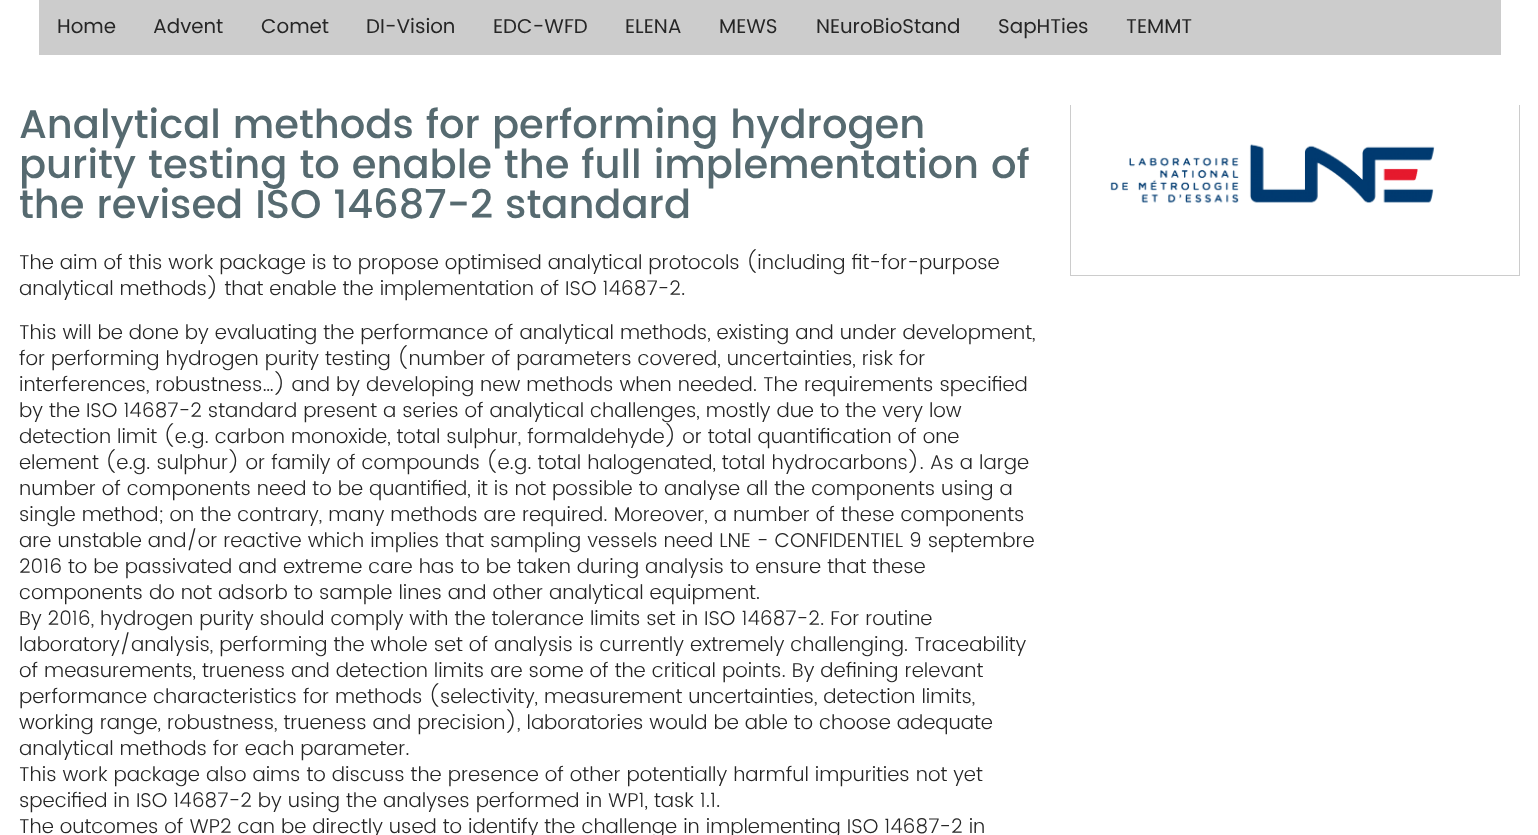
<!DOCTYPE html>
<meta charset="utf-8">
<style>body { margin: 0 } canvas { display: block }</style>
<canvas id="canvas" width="1538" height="835"></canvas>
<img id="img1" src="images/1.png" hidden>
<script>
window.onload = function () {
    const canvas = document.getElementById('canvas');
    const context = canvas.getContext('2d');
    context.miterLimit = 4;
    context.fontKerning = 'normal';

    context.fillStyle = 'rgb(255, 255, 255)';
    context.fillRect(0, 0, 1538, 835);
    context.fillStyle = 'rgb(204, 204, 204)';
    context.fillRect(39, 0, 1462, 55);
    context.fillRect(1070, 275, 450, 1);
    context.fillRect(1519, 105, 1, 170);
    context.fillRect(1070, 105, 1, 170);
    context.drawImage(document.getElementById('img1'), 1110, 144, 325, 59);
    context.font = '20px Poppins';
    context.fillStyle = 'rgb(38, 38, 38)';
    context.fillText('Home', 57, 33);
    context.fillText('Advent', 153, 33);
    context.fillText('Comet', 261, 33);
    context.fillText('DI-Vision', 366, 33);
    context.fillText('EDC-WFD', 493, 33);
    context.fillText('ELENA', 625, 33);
    context.fillText('MEWS', 719, 33);
    context.fillText('NEuroBioStand', 816, 33);
    context.fillText('SapHTies', 998, 33);
    context.fillText('TEMMT', 1126, 33);
    context.font = '500 40px Poppins';
    context.fillStyle = 'rgb(86, 106, 112)';
    context.fillText('Analytical methods for performing hydrogen', 19, 138);
    context.fillText('purity testing to enable the full implementation of', 19, 178);
    context.fillText('the revised ISO 14687‐2 standard', 19, 218);
    context.font = '300 20px Poppins';
    context.fillStyle = 'rgb(38, 38, 38)';
    context.fillText('The aim of this work package is to propose optimised analytical protocols (including fit‐for‐purpose', 19, 269);
    context.fillText('analytical methods) that enable the implementation of ISO 14687‐2.', 19, 295);
    context.fillText('This will be done by evaluating the performance of analytical methods, existing and under development,', 19, 339);
    context.fillText('for performing hydrogen purity testing (number of parameters covered, uncertainties, risk for', 19, 365);
    context.fillText('interferences, robustness…) and by developing new methods when needed. The requirements specified', 19, 391);
    context.fillText('by the ISO 14687‐2 standard present a series of analytical challenges, mostly due to the very low', 19, 417);
    context.fillText('detection limit (e.g. carbon monoxide, total sulphur, formaldehyde) or total quantification of one', 19, 443);
    context.fillText('element (e.g. sulphur) or family of compounds (e.g. total halogenated, total hydrocarbons). As a large', 19, 469);
    context.fillText('number of components need to be quantified, it is not possible to analyse all the components using a', 19, 495);
    context.fillText('single method; on the contrary, many methods are required. Moreover, a number of these components', 19, 521);
    context.fillText('are unstable and/or reactive which implies that sampling vessels need LNE ‐ CONFIDENTIEL 9 septembre', 19, 547);
    context.fillText('2016 to be passivated and extreme care has to be taken during analysis to ensure that these', 19, 573);
    context.fillText('components do not adsorb to sample lines and other analytical equipment.', 19, 599);
    context.fillText('By 2016, hydrogen purity should comply with the tolerance limits set in ISO 14687‐2. For routine', 19, 625);
    context.fillText('laboratory/analysis, performing the whole set of analysis is currently extremely challenging. Traceability', 19, 651);
    context.fillText('of measurements, trueness and detection limits are some of the critical points. By defining relevant', 19, 677);
    context.fillText('performance characteristics for methods (selectivity, measurement uncertainties, detection limits,', 19, 703);
    context.fillText('working range, robustness, trueness and precision), laboratories would be able to choose adequate', 19, 729);
    context.fillText('analytical methods for each parameter.', 19, 755);
    context.fillText('This work package also aims to discuss the presence of other potentially harmful impurities not yet', 19, 781);
    context.fillText('specified in ISO 14687‐2 by using the analyses performed in WP1, task 1.1.', 19, 807);
    context.fillText('The outcomes of WP2 can be directly used to identify the challenge in implementing ISO 14687‐2 in', 19, 833);
};
</script>
